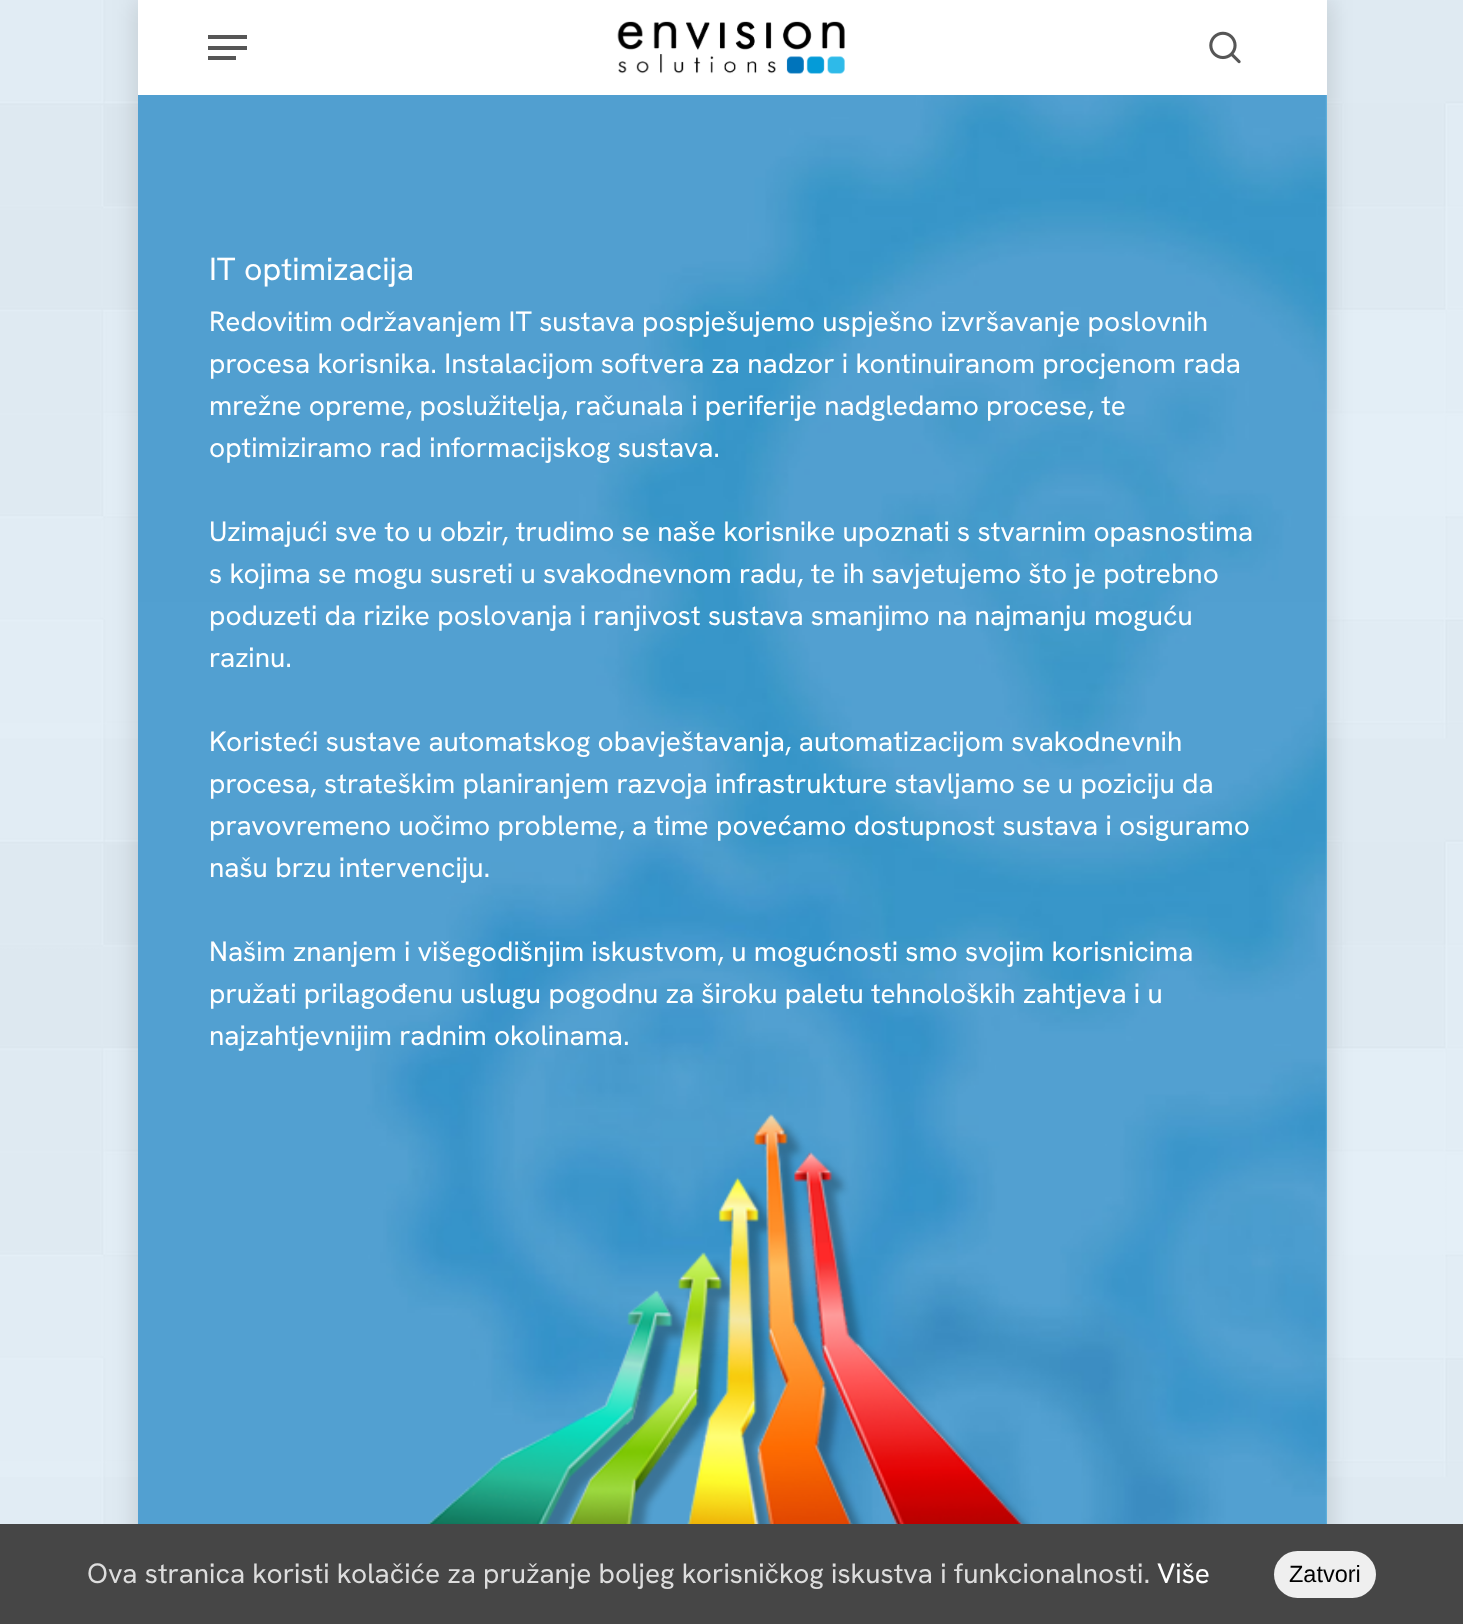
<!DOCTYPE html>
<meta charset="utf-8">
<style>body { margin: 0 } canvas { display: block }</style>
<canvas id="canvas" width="1463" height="1624"></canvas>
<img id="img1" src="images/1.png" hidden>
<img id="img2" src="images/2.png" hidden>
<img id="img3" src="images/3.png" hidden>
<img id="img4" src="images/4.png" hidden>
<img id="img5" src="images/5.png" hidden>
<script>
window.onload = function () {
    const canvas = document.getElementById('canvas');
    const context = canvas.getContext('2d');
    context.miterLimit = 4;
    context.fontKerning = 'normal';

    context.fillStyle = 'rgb(227, 239, 247)';
    context.fillRect(0, 0, 1463, 1624);
    context.drawImage(document.getElementById('img1'), 0, 0, 1463, 1524);
    context.fillStyle = 'rgba(0, 0, 0, 0.15)';
    context.filter = 'blur(13px)';
    context.beginPath();
    context.rect(138, 0, 1189, 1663);
    context.fill();
    context.filter = 'none';
    context.fillStyle = 'rgb(255, 255, 255)';
    context.fillRect(138, 0, 1189, 95);
    context.drawImage(document.getElementById('img2'), 617, 21, 228, 53);
    context.fillStyle = 'rgb(86, 86, 86)';
    context.fillRect(208, 35, 39, 4);
    context.fillRect(208, 56, 28, 4);
    context.fillRect(208, 46, 39, 4);
    context.drawImage(document.getElementById('img3'), 1209, 31, 32, 33);
    context.fillStyle = 'rgb(114, 196, 234)';
    context.fillRect(1325, 95, 2, 1429);
    context.drawImage(document.getElementById('img4'), 138, 95, 1189, 1429);
    context.drawImage(document.getElementById('img5'), 426, 1114, 604, 410);
    context.fillStyle = 'rgb(70, 70, 70)';
    context.fillRect(0, 1524, 1463, 100);
    context.fillStyle = 'rgb(239, 239, 239)';
    context.beginPath();
    context.roundRect(1274, 1551, 102, 47, 23.5);
    context.fill();
    context.font = '32px Hanken Grotesk';
    context.fillStyle = 'rgb(255, 255, 255)';
    context.fillText('IT optimizacija', 209, 280);
    context.font = '28px Hanken Grotesk';
    context.fillText('Redovitim održavanjem IT sustava pospješujemo uspješno izvršavanje poslovnih', 209, 331);
    context.fillText('procesa korisnika. Instalacijom softvera za nadzor i kontinuiranom procjenom rada', 209, 373);
    context.fillText('mrežne opreme, poslužitelja, računala i periferije nadgledamo procese, te', 209, 415);
    context.fillText('optimiziramo rad informacijskog sustava.', 209, 457);
    context.fillText('Uzimajući sve to u obzir, trudimo se naše korisnike upoznati s stvarnim opasnostima', 209, 541);
    context.fillText('s kojima se mogu susreti u svakodnevnom radu, te ih savjetujemo što je potrebno', 209, 583);
    context.fillText('poduzeti da rizike poslovanja i ranjivost sustava smanjimo na najmanju moguću', 209, 625);
    context.fillText('razinu.', 209, 667);
    context.fillText('Koristeći sustave automatskog obavještavanja, automatizacijom svakodnevnih', 209, 751);
    context.fillText('procesa, strateškim planiranjem razvoja infrastrukture stavljamo se u poziciju da', 209, 793);
    context.fillText('pravovremeno uočimo probleme, a time povećamo dostupnost sustava i osiguramo', 209, 835);
    context.fillText('našu brzu intervenciju.', 209, 877);
    context.fillText('Našim znanjem i višegodišnjim iskustvom, u mogućnosti smo svojim korisnicima', 209, 961);
    context.fillText('pružati prilagođenu uslugu pogodnu za široku paletu tehnoloških zahtjeva i u', 209, 1003);
    context.fillText('najzahtjevnijim radnim okolinama.', 209, 1045);
    context.fillStyle = 'rgb(221, 221, 221)';
    context.fillText('Ova stranica koristi kolačiće za pružanje boljeg korisničkog iskustva i funkcionalnosti.', 87, 1583);
    context.fillStyle = 'rgb(255, 255, 255)';
    context.fillText('Više', 1157, 1583);
    context.font = '23.5px Liberation Sans';
    context.fillStyle = 'rgb(0, 0, 0)';
    context.fillText('Zatvori', 1289, 1582);
};
</script>
